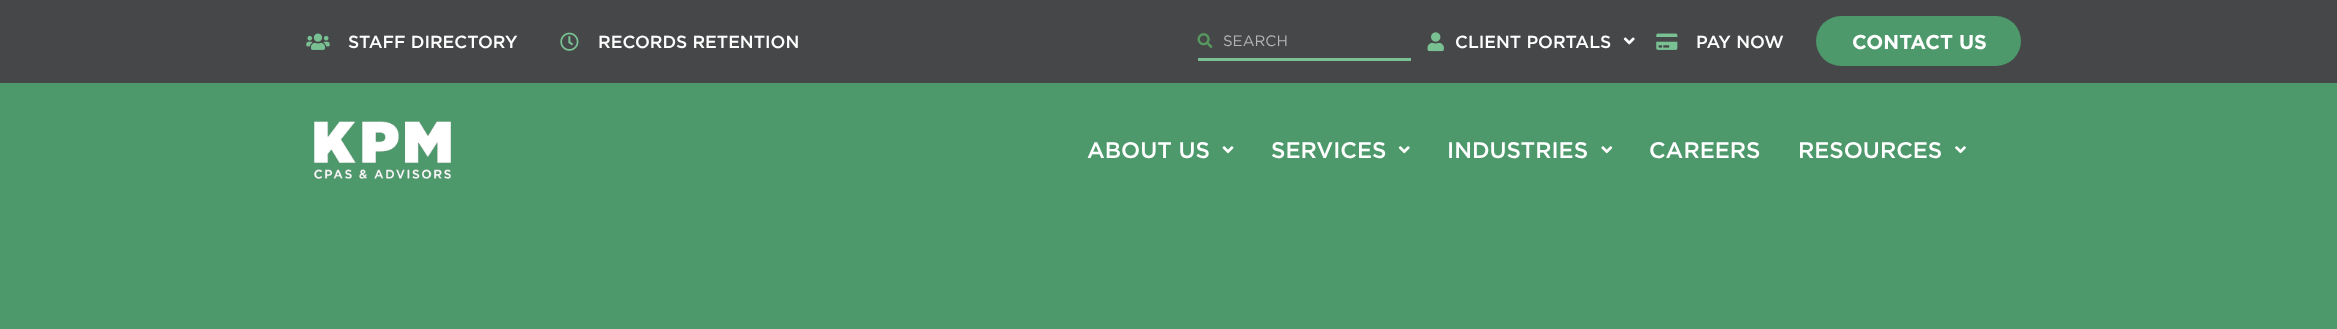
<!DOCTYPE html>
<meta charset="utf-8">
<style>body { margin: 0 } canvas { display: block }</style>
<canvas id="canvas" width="2337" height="329"></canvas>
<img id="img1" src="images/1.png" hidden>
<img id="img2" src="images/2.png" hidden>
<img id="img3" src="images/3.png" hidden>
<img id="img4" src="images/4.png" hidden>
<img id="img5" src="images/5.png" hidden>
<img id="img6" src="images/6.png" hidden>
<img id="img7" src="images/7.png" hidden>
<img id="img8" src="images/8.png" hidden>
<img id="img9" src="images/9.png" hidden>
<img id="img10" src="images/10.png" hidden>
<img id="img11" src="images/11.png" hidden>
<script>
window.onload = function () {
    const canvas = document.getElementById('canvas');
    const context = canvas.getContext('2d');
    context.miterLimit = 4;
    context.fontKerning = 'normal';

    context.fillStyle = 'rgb(255, 255, 255)';
    context.fillRect(0, 0, 2337, 329);
    context.fillStyle = 'rgb(77, 153, 107)';
    context.beginPath();
    context.moveTo(-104, -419);
    context.lineTo(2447, -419);
    context.lineTo(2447, 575);
    context.lineTo(-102, 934);
    context.lineTo(-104, 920);
    context.closePath();
    context.fill();
    context.fillStyle = 'rgb(70, 71, 72)';
    context.fillRect(0, 0, 2337, 83);
    context.drawImage(document.getElementById('img1'), 306, 33, 24, 17);
    context.drawImage(document.getElementById('img2'), 560, 32, 19, 19);
    context.fillStyle = 'rgb(121, 193, 147)';
    context.fillRect(1198, 58, 213, 3);
    context.drawImage(document.getElementById('img3'), 1197, 33, 16, 15);
    context.drawImage(document.getElementById('img4'), 1427, 32, 17, 20);
    context.drawImage(document.getElementById('img5'), 1623, 37, 12, 8);
    context.drawImage(document.getElementById('img6'), 1656, 33, 22, 17);
    context.fillStyle = 'rgb(77, 153, 107)';
    context.beginPath();
    context.roundRect(1816, 16, 205, 50, 25);
    context.fill();
    context.drawImage(document.getElementById('img7'), 314, 121, 137, 58);
    context.drawImage(document.getElementById('img8'), 1222, 146, 12, 8);
    context.drawImage(document.getElementById('img9'), 1398, 146, 12, 8);
    context.drawImage(document.getElementById('img10'), 1601, 146, 12, 8);
    context.drawImage(document.getElementById('img11'), 1955, 146, 11, 8);
    context.font = '500 17.5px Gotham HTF';
    context.fillStyle = 'rgb(255, 255, 255)';
    context.fillText('STAFF DIRECTORY', 348, 48);
    context.fillText('RECORDS RETENTION', 598, 48);
    context.font = '15px Gotham HTF';
    context.fillStyle = 'rgb(181, 181, 182)';
    context.fillText('SEARCH', 1223, 46);
    context.font = '500 17.5px Gotham HTF';
    context.fillStyle = 'rgb(255, 255, 255)';
    context.fillText('CLIENT PORTALS', 1455, 48);
    context.fillText('PAY NOW', 1696, 48);
    context.font = 'bold 20px Gotham HTF';
    context.fillText('CONTACT US', 1852, 49);
    context.font = '500 22.5px Gotham HTF';
    context.fillText('ABOUT US', 1087, 158);
    context.fillText('SERVICES', 1271, 158);
    context.fillText('INDUSTRIES', 1447, 158);
    context.fillText('CAREERS', 1649, 158);
    context.fillText('RESOURCES', 1798, 158);
};
</script>
